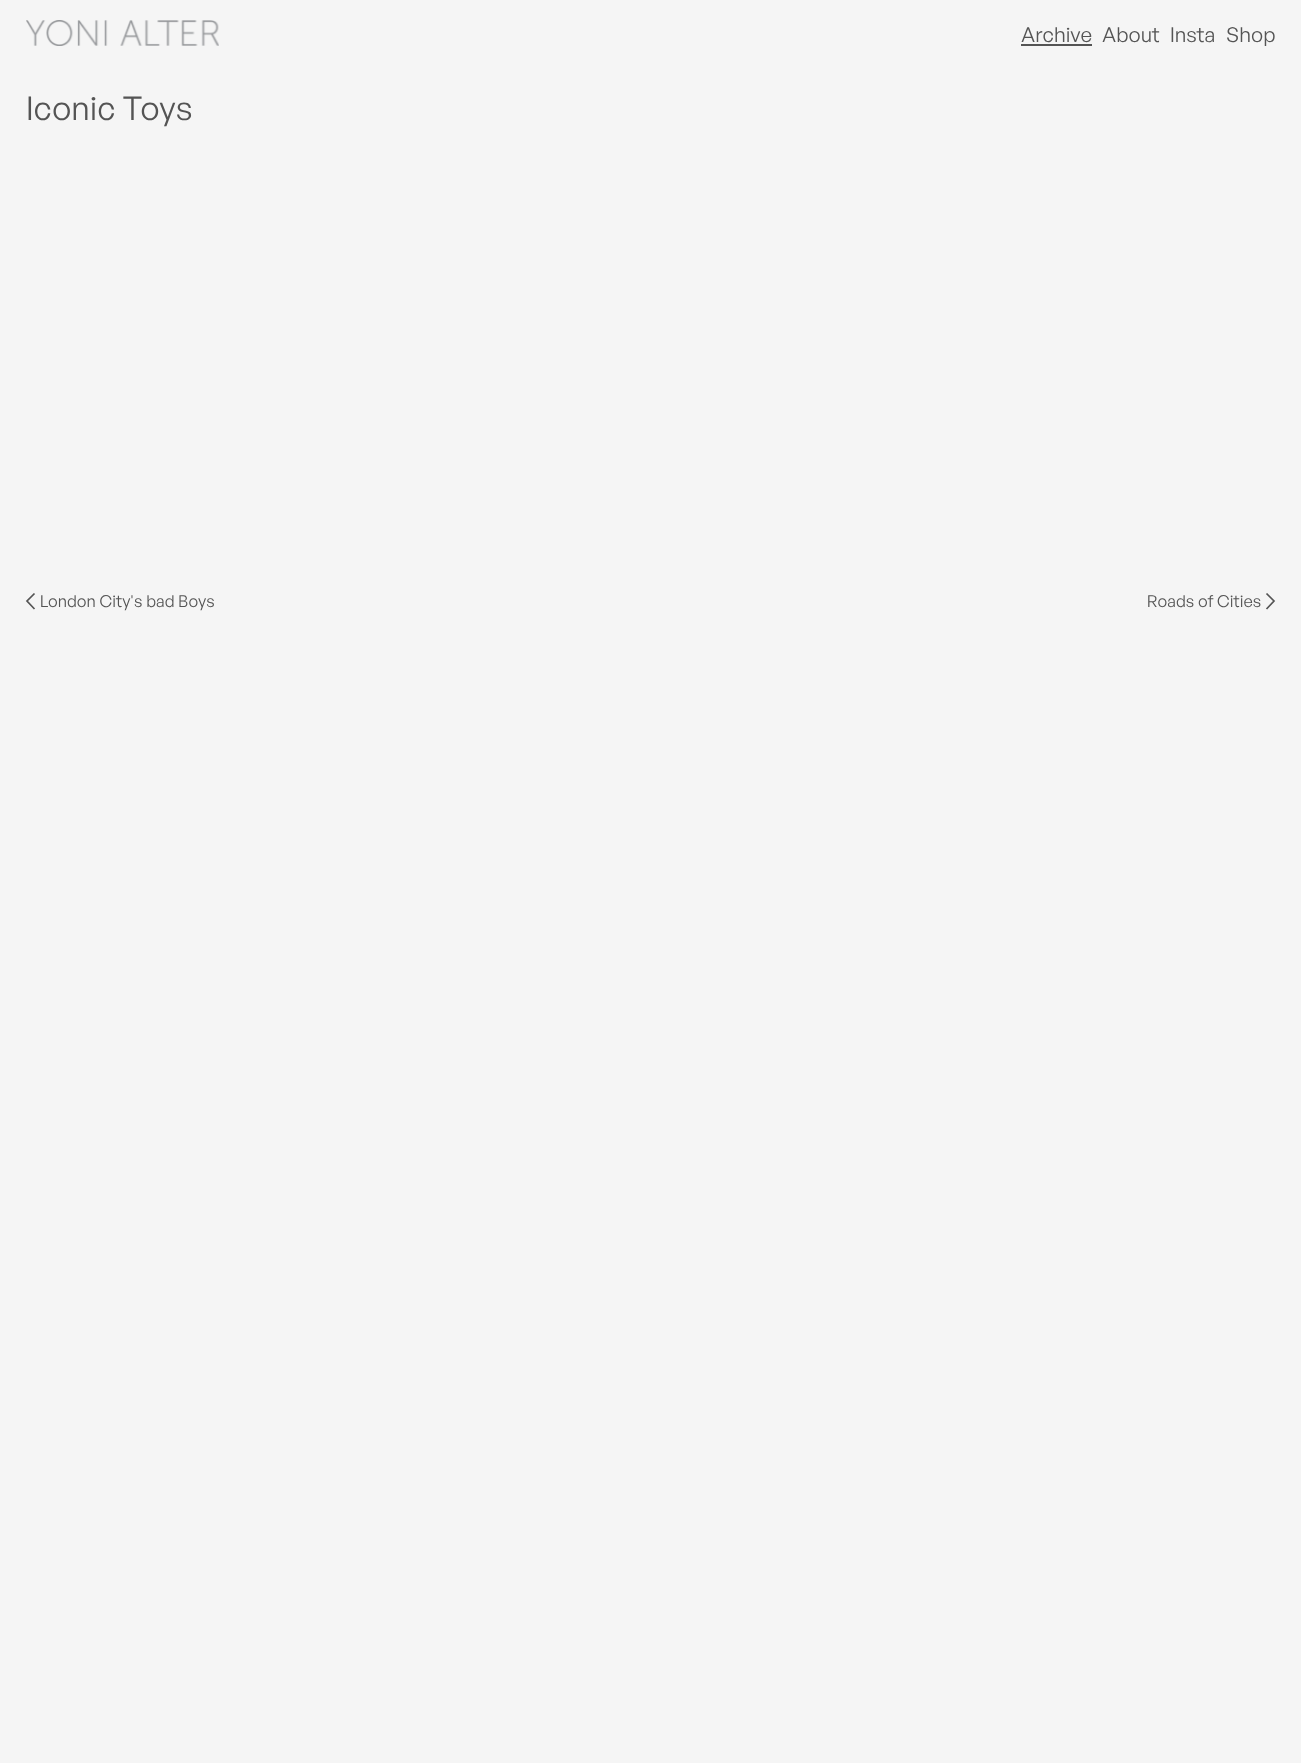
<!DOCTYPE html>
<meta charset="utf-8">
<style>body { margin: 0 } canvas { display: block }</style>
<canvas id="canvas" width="1301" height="1763"></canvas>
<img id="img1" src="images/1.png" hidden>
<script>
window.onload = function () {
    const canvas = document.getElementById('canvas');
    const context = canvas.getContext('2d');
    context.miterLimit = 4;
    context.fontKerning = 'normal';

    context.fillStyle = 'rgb(245, 245, 245)';
    context.fillRect(0, 0, 1301, 1763);
    context.drawImage(document.getElementById('img1'), 26, 20, 193, 26);
    context.fillStyle = 'rgb(84, 84, 84)';
    context.fillRect(1021, 44, 71, 2);
    context.beginPath();
    context.moveTo(34.5, 593.5);
    context.lineTo(27, 601);
    context.lineTo(34.5, 609);
    context.strokeStyle = 'rgb(84, 84, 84)';
    context.lineWidth = 1.7;
    context.stroke();
    context.beginPath();
    context.moveTo(1266.5, 609);
    context.lineTo(1274, 601);
    context.lineTo(1266.5, 593.5);
    context.stroke();
    context.font = '20.5px General Sans';
    context.fillText('Archive', 1021, 42);
    context.fillText('About', 1102, 42);
    context.fillText('Insta', 1170, 42);
    context.fillText('Shop', 1226, 42);
    context.font = '32.75px General Sans';
    context.fillText('Iconic Toys', 26, 120);
    context.font = '16.4px General Sans';
    context.fillText('London City\'s bad Boys', 40, 607);
    context.fillText('Roads of Cities', 1147, 607);
};
</script>
